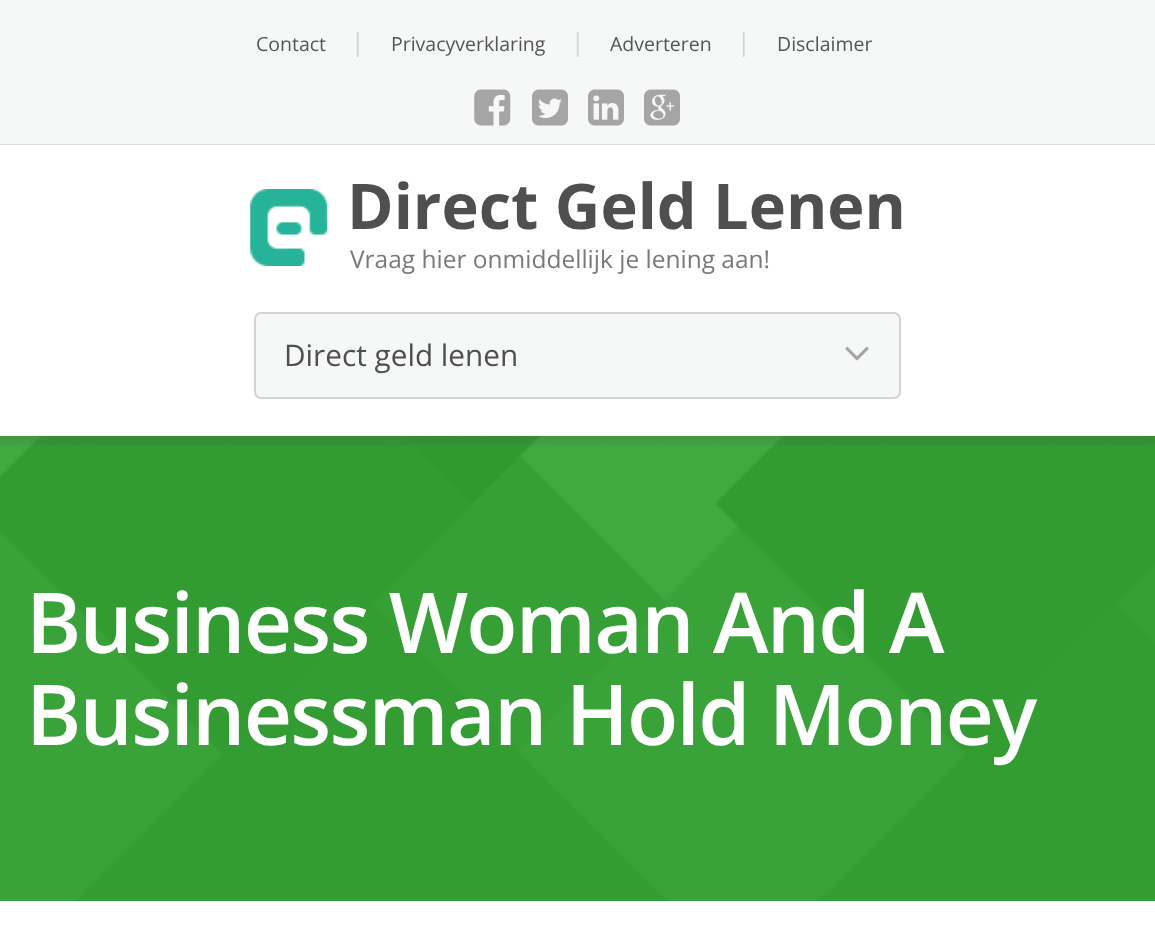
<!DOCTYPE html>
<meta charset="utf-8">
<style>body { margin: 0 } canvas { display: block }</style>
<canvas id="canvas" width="1155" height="932"></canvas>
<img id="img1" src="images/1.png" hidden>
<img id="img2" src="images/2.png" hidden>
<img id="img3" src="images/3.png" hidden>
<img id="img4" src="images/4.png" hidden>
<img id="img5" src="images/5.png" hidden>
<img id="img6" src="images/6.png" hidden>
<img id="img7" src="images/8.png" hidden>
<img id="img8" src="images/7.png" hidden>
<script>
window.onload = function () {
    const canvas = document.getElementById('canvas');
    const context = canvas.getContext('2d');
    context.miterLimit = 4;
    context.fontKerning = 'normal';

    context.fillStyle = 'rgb(255, 255, 255)';
    context.fillRect(0, 0, 1155, 932);
    context.fillStyle = 'rgb(246, 247, 247)';
    context.fillRect(0, 0, 1155, 144);
    context.fillStyle = 'rgb(217, 221, 224)';
    context.fillRect(0, 144, 1155, 1);
    context.drawImage(document.getElementById('img1'), 474, 89, 37, 37);
    context.drawImage(document.getElementById('img2'), 532, 89, 36, 37);
    context.drawImage(document.getElementById('img3'), 588, 89, 36, 37);
    context.drawImage(document.getElementById('img4'), 644, 89, 36, 37);
    context.drawImage(document.getElementById('img5'), 250, 189, 78, 77);
    context.fillStyle = 'rgb(246, 247, 247)';
    context.beginPath();
    context.roundRect(254, 312, 647, 87, 7);
    context.fill();
    context.drawImage(document.getElementById('img6'), 845, 346, 24, 15);
    context.beginPath();
    context.roundRect(255, 313, 645, 85, 6);
    context.strokeStyle = 'rgb(212, 212, 212)';
    context.lineWidth = 2;
    context.stroke();
    context.fillStyle = 'rgb(37, 168, 35)';
    context.fillRect(0, 436, 1155, 465);
    context.drawImage(document.getElementById('img7'), 0, 436, 1155, 466);
    context.drawImage(document.getElementById('img8'), 0, 435, 1155, 11);
    context.font = '19.5px Open Sans';
    context.fillStyle = 'rgb(85, 85, 85)';
    context.fillText('Contact', 256, 51);
    context.font = '24.5px Open Sans';
    context.fillStyle = 'rgb(207, 211, 215)';
    context.fillText('|', 351, 51);
    context.font = '19.5px Open Sans';
    context.fillStyle = 'rgb(85, 85, 85)';
    context.fillText('Privacyverklaring', 391, 51);
    context.font = '24.5px Open Sans';
    context.fillStyle = 'rgb(207, 211, 215)';
    context.fillText('|', 571, 51);
    context.font = '19.5px Open Sans';
    context.fillStyle = 'rgb(85, 85, 85)';
    context.fillText('Adverteren', 610, 51);
    context.font = '24.5px Open Sans';
    context.fillStyle = 'rgb(207, 211, 215)';
    context.fillText('|', 737, 51);
    context.font = '19.5px Open Sans';
    context.fillStyle = 'rgb(85, 85, 85)';
    context.fillText('Disclaimer', 777, 51);
    context.font = 'bold 63px Open Sans';
    context.fillStyle = 'rgb(79, 79, 79)';
    context.fillText('Direct Geld Lenen', 347, 229);
    context.font = '24.5px Open Sans';
    context.fillStyle = 'rgb(121, 121, 121)';
    context.fillText('Vraag hier onmiddellijk je lening aan!', 350, 268);
    context.font = '29.75px Open Sans';
    context.fillStyle = 'rgb(79, 79, 79)';
    context.fillText('Direct geld lenen', 284, 366);
    context.letterSpacing = '-1.75px';
    context.font = '600 84px Open Sans';
    context.fillStyle = 'rgb(255, 255, 255)';
    context.fillText('Business Woman And A', 26, 653);
    context.fillText('Businessman Hold Money', 26, 745);
};
</script>
